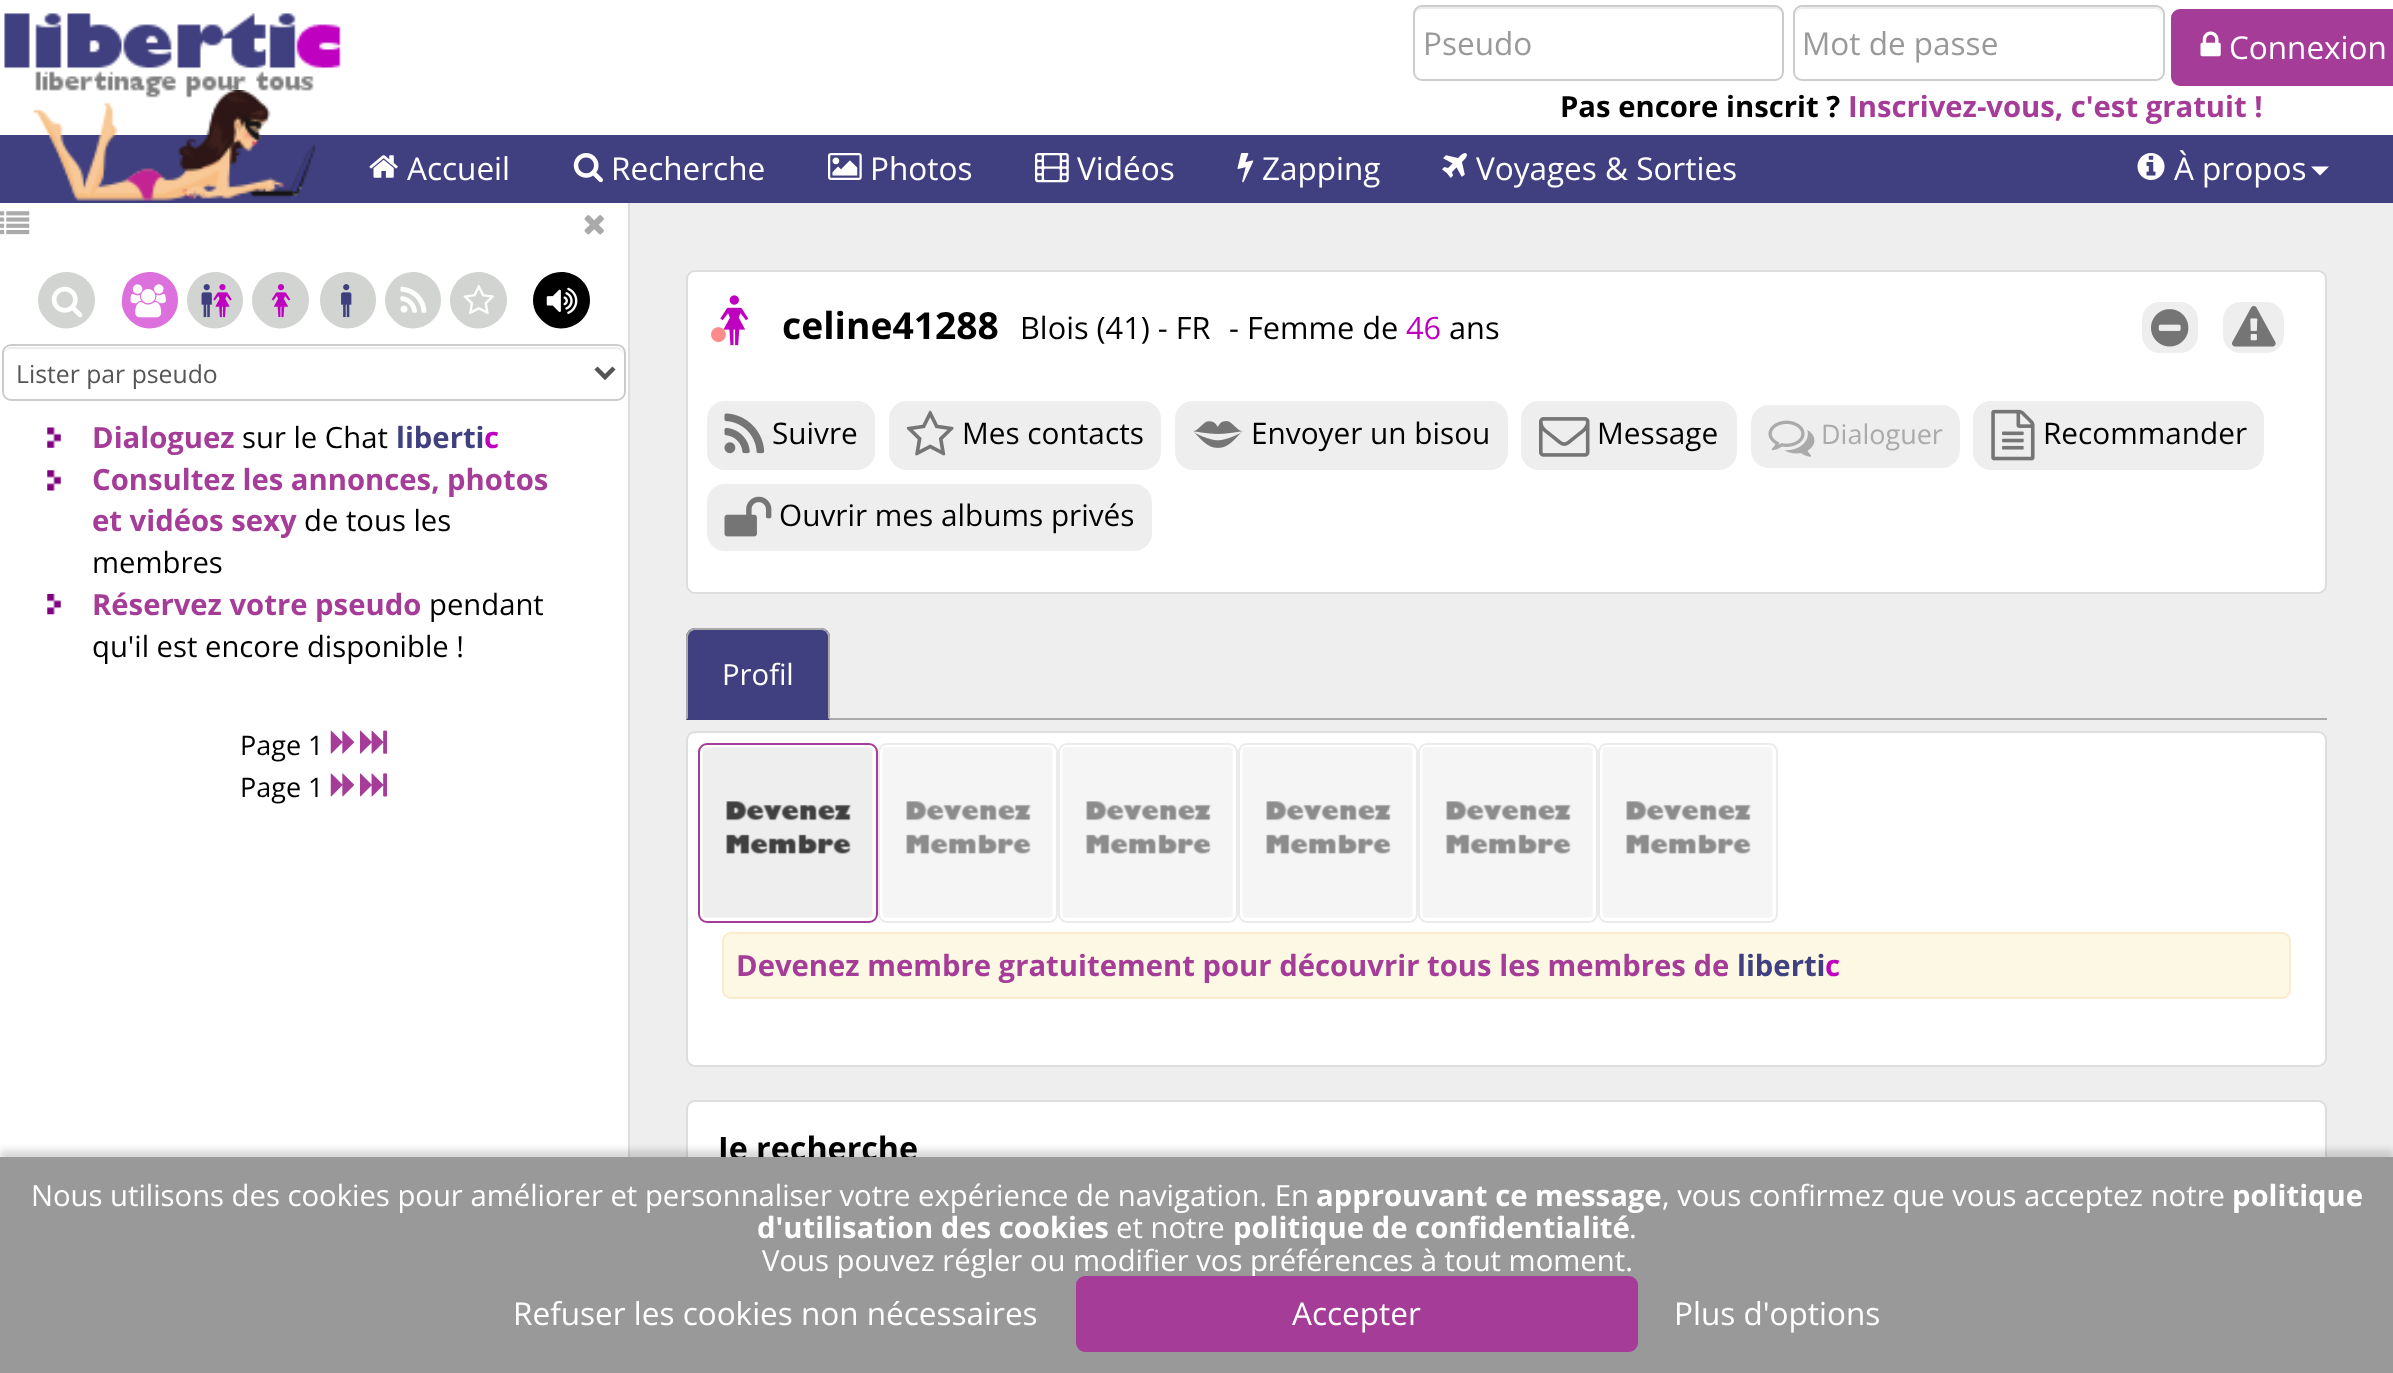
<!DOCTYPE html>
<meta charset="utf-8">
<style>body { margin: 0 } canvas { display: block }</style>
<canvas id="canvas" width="2393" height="1373"></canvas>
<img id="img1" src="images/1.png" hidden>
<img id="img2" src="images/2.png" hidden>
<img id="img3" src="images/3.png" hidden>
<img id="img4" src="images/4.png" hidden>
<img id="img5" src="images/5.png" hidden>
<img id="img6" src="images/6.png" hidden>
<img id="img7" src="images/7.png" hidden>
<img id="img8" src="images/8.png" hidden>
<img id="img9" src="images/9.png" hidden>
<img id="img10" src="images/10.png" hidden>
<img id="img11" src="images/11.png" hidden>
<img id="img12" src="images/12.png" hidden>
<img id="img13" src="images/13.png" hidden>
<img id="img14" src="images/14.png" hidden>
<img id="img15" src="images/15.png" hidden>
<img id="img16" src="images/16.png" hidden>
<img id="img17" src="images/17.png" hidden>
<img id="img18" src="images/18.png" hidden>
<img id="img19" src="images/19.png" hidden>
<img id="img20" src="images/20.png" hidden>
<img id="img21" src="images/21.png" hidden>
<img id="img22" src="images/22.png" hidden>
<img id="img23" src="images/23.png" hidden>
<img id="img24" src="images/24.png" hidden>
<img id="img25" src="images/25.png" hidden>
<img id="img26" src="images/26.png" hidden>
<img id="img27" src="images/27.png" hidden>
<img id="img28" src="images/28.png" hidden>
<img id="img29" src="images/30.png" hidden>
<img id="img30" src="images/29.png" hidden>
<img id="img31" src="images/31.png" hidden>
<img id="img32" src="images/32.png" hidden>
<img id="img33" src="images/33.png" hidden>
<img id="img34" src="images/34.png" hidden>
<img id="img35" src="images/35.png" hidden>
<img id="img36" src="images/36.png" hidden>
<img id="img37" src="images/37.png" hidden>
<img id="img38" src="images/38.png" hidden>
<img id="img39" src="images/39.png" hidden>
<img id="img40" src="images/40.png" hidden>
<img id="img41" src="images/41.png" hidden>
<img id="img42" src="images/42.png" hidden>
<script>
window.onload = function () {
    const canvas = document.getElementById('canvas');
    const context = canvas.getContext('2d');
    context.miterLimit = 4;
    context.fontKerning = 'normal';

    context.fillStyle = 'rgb(238, 238, 238)';
    context.fillRect(0, 0, 2393, 1373);
    context.fillStyle = 'rgb(255, 255, 255)';
    context.fillRect(0, 0, 2393, 135);
    context.drawImage(document.getElementById('img1'), 4, 13, 337, 85);
    context.fillStyle = 'rgb(64, 64, 128)';
    context.fillRect(0, 135, 2393, 68);
    context.drawImage(document.getElementById('img2'), 33, 90, 282, 111);
    context.fillStyle = 'rgb(236, 236, 236)';
    context.beginPath();
    context.moveTo(1422, 9);
    context.lineTo(1775, 9);
    context.bezierCurveTo(1779, 9, 1782, 12, 1782, 16);
    context.lineTo(1782, 14);
    context.bezierCurveTo(1782, 10, 1779, 7, 1775, 7);
    context.lineTo(1422, 7);
    context.bezierCurveTo(1418, 7, 1415, 10, 1415, 14);
    context.lineTo(1415, 16);
    context.bezierCurveTo(1415, 12, 1418, 9, 1422, 9);
    context.closePath();
    context.fill();
    context.beginPath();
    context.roundRect(1414, 6, 369, 74, 8);
    context.strokeStyle = 'rgb(204, 204, 204)';
    context.lineWidth = 2;
    context.stroke();
    context.beginPath();
    context.moveTo(1802, 9);
    context.lineTo(2156, 9);
    context.bezierCurveTo(2159, 9, 2162, 12, 2162, 16);
    context.lineTo(2162, 14);
    context.bezierCurveTo(2162, 10, 2159, 7, 2155, 7);
    context.lineTo(1803, 7);
    context.bezierCurveTo(1799, 7, 1796, 10, 1796, 14);
    context.lineTo(1796, 16);
    context.bezierCurveTo(1796, 12, 1799, 9, 1802, 9);
    context.closePath();
    context.fill();
    context.beginPath();
    context.roundRect(1794, 6, 370, 74, 8);
    context.stroke();
    context.fillStyle = 'rgb(165, 60, 152)';
    context.beginPath();
    context.roundRect(2172, 10, 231, 75, 8);
    context.fill();
    context.strokeStyle = 'rgb(165, 60, 152)';
    context.stroke();
    context.drawImage(document.getElementById('img3'), 2200, 31, 21, 26);
    context.drawImage(document.getElementById('img4'), 369, 155, 29, 23);
    context.drawImage(document.getElementById('img5'), 573, 153, 30, 30);
    context.drawImage(document.getElementById('img6'), 828, 153, 34, 27);
    context.drawImage(document.getElementById('img7'), 1035, 153, 34, 30);
    context.drawImage(document.getElementById('img8'), 1237, 153, 17, 30);
    context.drawImage(document.getElementById('img9'), 1442, 153, 25, 25);
    context.drawImage(document.getElementById('img10'), 2137, 153, 28, 27);
    context.fillStyle = 'rgb(255, 255, 255)';
    context.beginPath();
    context.moveTo(2311, 166.5);
    context.lineTo(2329, 166.5);
    context.lineTo(2320, 175.5);
    context.closePath();
    context.fill();
    context.fillRect(0, 203, 628, 954);
    context.drawImage(document.getElementById('img11'), 0, 211, 30, 24);
    context.fillStyle = 'rgb(221, 221, 221)';
    context.fillRect(628, 203, 2, 954);
    context.drawImage(document.getElementById('img12'), 584, 215, 20, 20);
    context.fillStyle = 'rgb(209, 212, 208)';
    context.beginPath();
    context.moveTo(95, 300);
    context.bezierCurveTo(95, 327, 60, 339, 44, 317);
    context.bezierCurveTo(40, 313, 38, 306, 38, 300);
    context.bezierCurveTo(38, 294, 40, 288, 44, 283);
    context.bezierCurveTo(60, 262, 95, 273, 95, 300);
    context.closePath();
    context.fill();
    context.drawImage(document.getElementById('img13'), 51, 286, 32, 32);
    context.fillStyle = 'rgb(220, 112, 220)';
    context.beginPath();
    context.moveTo(178, 300);
    context.bezierCurveTo(178, 327, 144, 339, 127, 317);
    context.bezierCurveTo(124, 313, 121, 306, 122, 300);
    context.bezierCurveTo(122, 294, 124, 288, 127, 283);
    context.bezierCurveTo(144, 262, 178, 273, 178, 300);
    context.closePath();
    context.fill();
    context.drawImage(document.getElementById('img14'), 130, 284, 36, 34);
    context.fillStyle = 'rgb(209, 212, 208)';
    context.beginPath();
    context.moveTo(243, 300);
    context.bezierCurveTo(243, 327, 209, 339, 193, 317);
    context.bezierCurveTo(189, 313, 187, 306, 187, 300);
    context.bezierCurveTo(187, 294, 189, 288, 193, 283);
    context.bezierCurveTo(209, 262, 243, 273, 243, 300);
    context.closePath();
    context.fill();
    context.drawImage(document.getElementById('img15'), 201, 284, 11, 34);
    context.drawImage(document.getElementById('img16'), 213, 284, 19, 34);
    context.beginPath();
    context.moveTo(309, 300);
    context.bezierCurveTo(309, 327, 274, 339, 258, 317);
    context.bezierCurveTo(254, 313, 252, 306, 252, 300);
    context.bezierCurveTo(252, 294, 254, 288, 258, 283);
    context.bezierCurveTo(274, 262, 309, 273, 309, 300);
    context.closePath();
    context.fill();
    context.drawImage(document.getElementById('img17'), 271, 284, 20, 34);
    context.beginPath();
    context.moveTo(376, 300);
    context.bezierCurveTo(376, 327, 342, 339, 325, 317);
    context.bezierCurveTo(322, 313, 320, 306, 320, 300);
    context.bezierCurveTo(320, 294, 322, 288, 325, 283);
    context.bezierCurveTo(342, 262, 376, 273, 376, 300);
    context.closePath();
    context.fill();
    context.drawImage(document.getElementById('img18'), 341, 284, 11, 34);
    context.beginPath();
    context.moveTo(441, 300);
    context.bezierCurveTo(441, 327, 407, 339, 391, 317);
    context.bezierCurveTo(387, 313, 385, 306, 385, 300);
    context.bezierCurveTo(385, 294, 387, 288, 391, 283);
    context.bezierCurveTo(407, 262, 441, 273, 441, 300);
    context.closePath();
    context.fill();
    context.drawImage(document.getElementById('img19'), 400, 286, 27, 27);
    context.beginPath();
    context.moveTo(507, 300);
    context.bezierCurveTo(507, 327, 472, 339, 456, 317);
    context.bezierCurveTo(452, 313, 450, 306, 450, 300);
    context.bezierCurveTo(450, 294, 452, 288, 456, 283);
    context.bezierCurveTo(472, 262, 507, 273, 507, 300);
    context.closePath();
    context.fill();
    context.drawImage(document.getElementById('img20'), 463, 285, 31, 29);
    context.fillStyle = 'rgb(0, 0, 0)';
    context.beginPath();
    context.moveTo(590, 300);
    context.bezierCurveTo(590, 327, 555, 339, 539, 317);
    context.bezierCurveTo(535, 313, 533, 306, 533, 300);
    context.bezierCurveTo(533, 294, 535, 288, 539, 283);
    context.bezierCurveTo(555, 262, 590, 273, 590, 300);
    context.closePath();
    context.fill();
    context.drawImage(document.getElementById('img21'), 546, 287, 32, 27);
    context.fillStyle = 'rgb(236, 236, 236)';
    context.beginPath();
    context.moveTo(11, 349);
    context.lineTo(616, 349);
    context.bezierCurveTo(620, 349, 623, 352, 623, 356);
    context.lineTo(623, 354);
    context.bezierCurveTo(623, 350, 620, 347, 616, 347);
    context.lineTo(12, 347);
    context.bezierCurveTo(9, 347, 6, 349, 5, 352);
    context.bezierCurveTo(7, 350, 9, 349, 11, 349);
    context.closePath();
    context.fill();
    context.beginPath();
    context.roundRect(3, 345, 622, 55, 8);
    context.strokeStyle = 'rgb(204, 204, 204)';
    context.stroke();
    context.beginPath();
    context.moveTo(596, 368);
    context.lineTo(605, 377);
    context.lineTo(614, 368);
    context.strokeStyle = 'rgb(85, 85, 85)';
    context.lineWidth = 4.5;
    context.stroke();
    context.drawImage(document.getElementById('img22'), 47, 427, 14, 21);
    context.drawImage(document.getElementById('img23'), 47, 470, 14, 21);
    context.drawImage(document.getElementById('img24'), 47, 594, 14, 21);
    context.drawImage(document.getElementById('img25'), 330, 730, 24, 24);
    context.drawImage(document.getElementById('img26'), 360, 730, 27, 24);
    context.drawImage(document.getElementById('img27'), 330, 773, 24, 24);
    context.drawImage(document.getElementById('img28'), 360, 773, 27, 24);
    context.fillStyle = 'rgb(255, 255, 255)';
    context.beginPath();
    context.roundRect(687, 271, 1639, 322, 8);
    context.fill();
    context.strokeStyle = 'rgb(221, 221, 221)';
    context.lineWidth = 2;
    context.stroke();
    context.drawImage(document.getElementById('img29'), 720, 295, 29, 51);
    context.drawImage(document.getElementById('img30'), 711, 327, 15, 15);
    context.fillStyle = 'rgb(238, 238, 238)';
    context.beginPath();
    context.roundRect(2142, 302, 56, 51, 18);
    context.fill();
    context.drawImage(document.getElementById('img31'), 2151, 309, 38, 38);
    context.beginPath();
    context.roundRect(2223, 302, 61, 51, 18);
    context.fill();
    context.drawImage(document.getElementById('img32'), 2232, 306, 44, 41);
    context.beginPath();
    context.roundRect(707, 401, 168, 69, 18);
    context.fill();
    context.drawImage(document.getElementById('img33'), 724, 413, 41, 41);
    context.beginPath();
    context.roundRect(889, 401, 272, 69, 18);
    context.fill();
    context.drawImage(document.getElementById('img34'), 906, 410, 48, 46);
    context.beginPath();
    context.roundRect(1175, 401, 333, 69, 18);
    context.fill();
    context.drawImage(document.getElementById('img35'), 1193, 421, 50, 27);
    context.beginPath();
    context.roundRect(1521, 401, 216, 69, 18);
    context.fill();
    context.drawImage(document.getElementById('img36'), 1539, 417, 51, 40);
    context.beginPath();
    context.roundRect(1751, 405, 209, 63, 18);
    context.fill();
    context.drawImage(document.getElementById('img37'), 1768, 420, 47, 37);
    context.beginPath();
    context.roundRect(1973, 401, 291, 69, 18);
    context.fill();
    context.drawImage(document.getElementById('img38'), 1991, 409, 44, 52);
    context.beginPath();
    context.roundRect(707, 484, 445, 67, 18);
    context.fill();
    context.drawImage(document.getElementById('img39'), 724, 496, 48, 41);
    context.fillStyle = 'rgb(170, 170, 170)';
    context.fillRect(830, 718, 1497, 2);
    context.fillStyle = 'rgb(64, 64, 128)';
    context.beginPath();
    context.roundRect(686, 628, 144, 92, [9, 9, 0, 0]);
    context.fill();
    context.fillStyle = 'rgb(170, 170, 170)';
    context.beginPath();
    context.moveTo(695, 628);
    context.bezierCurveTo(693, 628, 690, 629, 689, 630);
    context.lineTo(690, 632);
    context.lineTo(694, 630);
    context.lineTo(822, 630);
    context.bezierCurveTo(823, 630, 825, 631, 826, 632);
    context.lineTo(827, 631);
    context.bezierCurveTo(826, 629, 824, 628, 821, 628);
    context.closePath();
    context.fill();
    context.beginPath();
    context.moveTo(830, 720);
    context.lineTo(830, 637);
    context.bezierCurveTo(830, 634, 829, 632, 827, 631);
    context.lineTo(826, 632);
    context.bezierCurveTo(827, 633, 828, 635, 828, 637);
    context.lineTo(828, 718);
    context.closePath();
    context.fill();
    context.beginPath();
    context.moveTo(686, 720);
    context.lineTo(688, 718);
    context.lineTo(688, 636);
    context.lineTo(690, 632);
    context.lineTo(689, 630);
    context.bezierCurveTo(688, 632, 687, 633, 686, 635);
    context.closePath();
    context.fill();
    context.fillStyle = 'rgb(255, 255, 255)';
    context.beginPath();
    context.roundRect(687, 732, 1639, 334, 8);
    context.fill();
    context.stroke();
    context.beginPath();
    context.roundRect(699, 744, 178, 178, 8);
    context.strokeStyle = 'rgb(165, 60, 152)';
    context.stroke();
    context.drawImage(document.getElementById('img40'), 702, 747, 171, 171);
    context.beginPath();
    context.roundRect(879, 744, 178, 178, 8);
    context.strokeStyle = 'rgb(235, 235, 235)';
    context.stroke();
    context.drawImage(document.getElementById('img41'), 882, 747, 171, 171);
    context.beginPath();
    context.roundRect(1059, 744, 178, 178, 8);
    context.stroke();
    context.drawImage(document.getElementById('img42'), 1062, 747, 171, 171);
    context.beginPath();
    context.roundRect(1239, 744, 178, 178, 8);
    context.stroke();
    context.drawImage(document.getElementById('img42'), 1242, 747, 171, 171);
    context.beginPath();
    context.roundRect(1419, 744, 178, 178, 8);
    context.stroke();
    context.drawImage(document.getElementById('img41'), 1422, 747, 171, 171);
    context.beginPath();
    context.roundRect(1599, 744, 178, 178, 8);
    context.stroke();
    context.drawImage(document.getElementById('img41'), 1602, 747, 171, 171);
    context.fillStyle = 'rgb(252, 248, 227)';
    context.beginPath();
    context.roundRect(723, 933, 1567, 65, 8);
    context.fill();
    context.strokeStyle = 'rgb(250, 235, 204)';
    context.stroke();
    context.fillStyle = 'rgb(255, 255, 255)';
    context.beginPath();
    context.roundRect(687, 1101, 1639, 178, 8);
    context.fill();
    context.strokeStyle = 'rgb(221, 221, 221)';
    context.stroke();
    context.fillStyle = 'rgba(0, 0, 0, 0.15)';
    context.filter = 'blur(3.5px)';
    context.beginPath();
    context.rect(0, 1150, 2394, 218);
    context.fill();
    context.filter = 'none';
    context.font = '31.5px Open Sans';
    context.fillStyle = 'rgb(153, 153, 153)';
    context.fillText('Pseudo', 1423, 55);
    context.fillText('Mot de passe', 1802, 55);
    context.fillStyle = 'rgb(255, 255, 255)';
    context.fillText('Connexion', 2229, 59);
    context.font = 'bold 29.25px Open Sans';
    context.fillStyle = 'rgb(0, 0, 0)';
    context.fillText('Pas encore inscrit ?', 1560, 117);
    context.fillStyle = 'rgb(165, 60, 152)';
    context.fillText('Inscrivez-vous, c\'est gratuit !', 1848, 117);
    context.font = '31.5px Open Sans';
    context.fillStyle = 'rgb(255, 255, 255)';
    context.fillText('Accueil', 407, 180);
    context.fillText('Recherche', 611, 180);
    context.fillText('Photos', 870, 180);
    context.fillText('Vidéos', 1077, 180);
    context.fillText('Zapping', 1262, 180);
    context.fillText('Voyages & Sorties', 1476, 180);
    context.fillText('À propos', 2174, 180);
    context.font = '24.75px Open Sans';
    context.fillStyle = 'rgb(85, 85, 85)';
    context.fillText('Lister par pseudo', 16, 383);
    context.font = 'bold 29.25px Open Sans';
    context.fillStyle = 'rgb(165, 60, 152)';
    context.fillText('Dialoguez', 92, 448);
    context.font = '29.25px Open Sans';
    context.fillStyle = 'rgb(0, 0, 0)';
    context.fillText('sur le Chat', 242, 448);
    context.font = 'bold 29.25px Open Sans';
    context.fillStyle = 'rgb(64, 64, 128)';
    context.fillText('liberti', 396, 448);
    context.fillStyle = 'rgb(192, 0, 192)';
    context.fillText('c', 484, 448);
    context.fillStyle = 'rgb(165, 60, 152)';
    context.fillText('Consultez les annonces, photos', 92, 490);
    context.fillText('et vidéos sexy', 92, 531);
    context.font = '29.25px Open Sans';
    context.fillStyle = 'rgb(0, 0, 0)';
    context.fillText('de tous les', 304, 531);
    context.fillText('membres', 92, 573);
    context.font = 'bold 29.25px Open Sans';
    context.fillStyle = 'rgb(165, 60, 152)';
    context.fillText('Réservez votre pseudo', 92, 615);
    context.font = '29.25px Open Sans';
    context.fillStyle = 'rgb(0, 0, 0)';
    context.fillText('pendant', 429, 615);
    context.fillText('qu\'il est encore disponible !', 92, 657);
    context.font = '27px Open Sans';
    context.fillText('Page 1', 240, 755);
    context.fillText('Page 1', 240, 797);
    context.font = 'bold 37.25px Open Sans';
    context.fillText('celine41288', 782, 339);
    context.font = '30.75px Open Sans';
    context.fillText('Blois (41) - FR', 1020, 339);
    context.fillText('- Femme de', 1229, 339);
    context.fillStyle = 'rgb(192, 0, 192)';
    context.fillText('46', 1406, 339);
    context.fillStyle = 'rgb(0, 0, 0)';
    context.fillText('ans', 1449, 339);
    context.font = '29.75px Open Sans';
    context.fillText('Suivre', 772, 444);
    context.fillText('Mes contacts', 962, 444);
    context.fillText('Envoyer un bisou', 1251, 444);
    context.fillText('Message', 1597, 444);
    context.font = '27px Open Sans';
    context.fillStyle = 'rgb(170, 170, 170)';
    context.fillText('Dialoguer', 1821, 444);
    context.font = '29.75px Open Sans';
    context.fillStyle = 'rgb(0, 0, 0)';
    context.fillText('Recommander', 2043, 444);
    context.fillText('Ouvrir mes albums privés', 779, 526);
    context.font = '29.25px Open Sans';
    context.fillStyle = 'rgb(255, 255, 255)';
    context.fillText('Profil', 722, 685);
    context.font = 'bold 29.25px Open Sans';
    context.fillStyle = 'rgb(165, 60, 152)';
    context.fillText('Devenez membre gratuitement pour découvrir tous les membres de', 736, 976);
    context.fillStyle = 'rgb(64, 64, 128)';
    context.fillText('liberti', 1737, 976);
    context.fillStyle = 'rgb(192, 0, 192)';
    context.fillText('c', 1825, 976);
    context.font = 'bold 32.25px Open Sans';
    context.fillStyle = 'rgb(0, 0, 0)';
    context.fillText('Je recherche', 718, 1160);
    context.fillStyle = 'rgb(153, 153, 153)';
    context.fillRect(0, 1157, 2393, 216);
    context.font = '29.25px Open Sans';
    context.fillStyle = 'rgb(255, 255, 255)';
    context.fillText('Nous utilisons des cookies pour améliorer et personnaliser votre expérience de navigation. En', 31, 1206);
    context.font = 'bold 29.25px Open Sans';
    context.fillText('approuvant ce message', 1316, 1206);
    context.font = '29.25px Open Sans';
    context.fillText(', vous confirmez que vous acceptez notre', 1662, 1206);
    context.font = 'bold 29.25px Open Sans';
    context.fillText('politique', 2232, 1206);
    context.fillText('d\'utilisation des cookies', 757, 1238);
    context.font = '29.25px Open Sans';
    context.fillText('et notre', 1116, 1238);
    context.font = 'bold 29.25px Open Sans';
    context.fillText('politique de confidentialité', 1233, 1238);
    context.font = '29.25px Open Sans';
    context.fillText('.', 1629, 1238);
    context.fillText('Vous pouvez régler ou modifier vos préférences à tout moment.', 762, 1271);
    context.font = '31.5px Open Sans';
    context.fillText('Refuser les cookies non nécessaires', 513, 1325);
    context.fillStyle = 'rgb(165, 60, 152)';
    context.beginPath();
    context.roundRect(1077, 1277, 560, 74, 8);
    context.fill();
    context.strokeStyle = 'rgb(165, 60, 152)';
    context.stroke();
    context.fillStyle = 'rgb(255, 255, 255)';
    context.fillText('Accepter', 1292, 1325);
    context.fillText('Plus d\'options', 1674, 1325);
};
</script>
